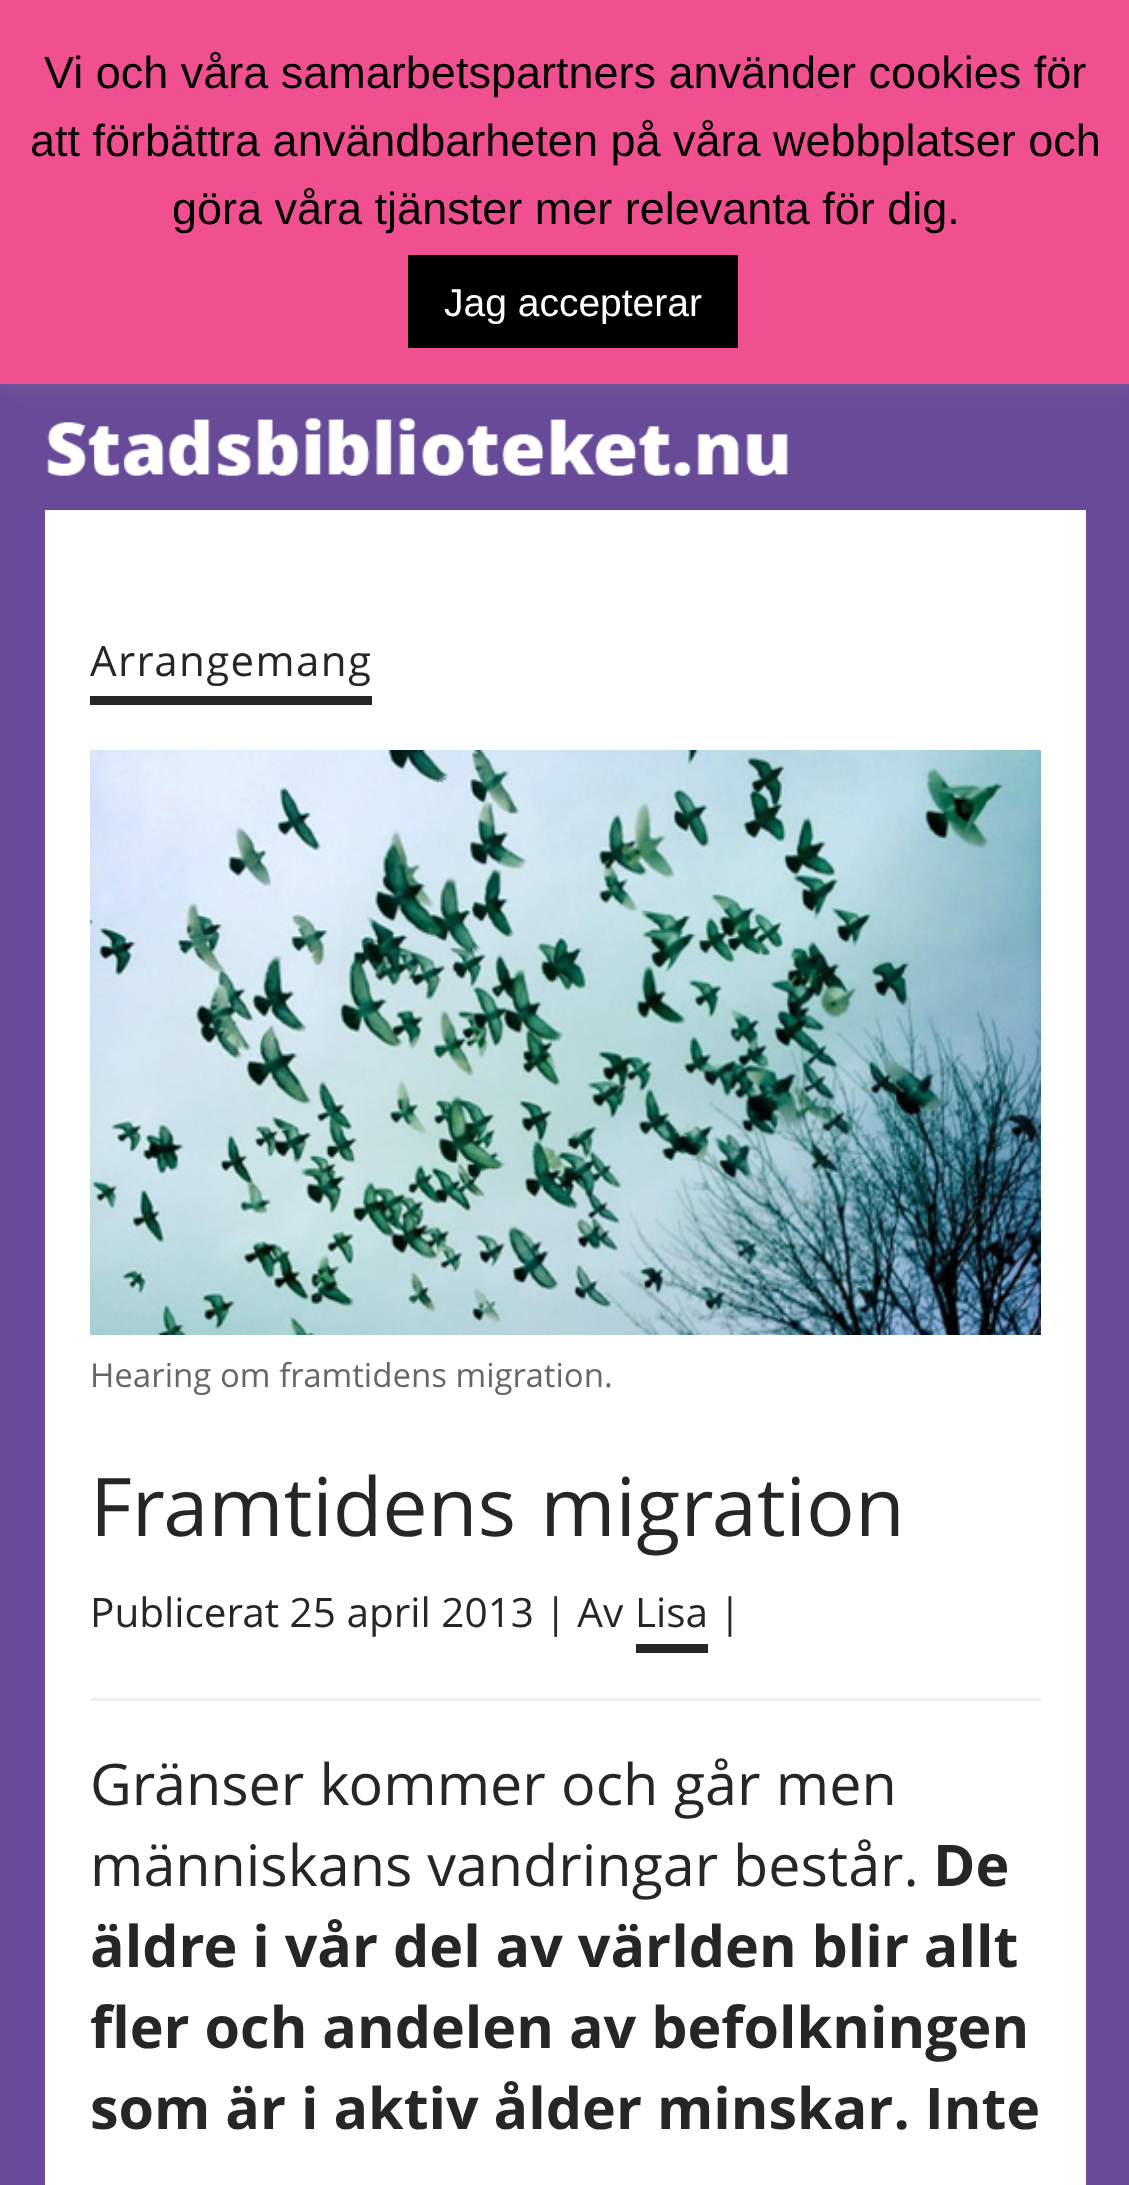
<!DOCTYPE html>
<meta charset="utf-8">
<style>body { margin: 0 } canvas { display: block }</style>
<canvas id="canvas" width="1129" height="2185"></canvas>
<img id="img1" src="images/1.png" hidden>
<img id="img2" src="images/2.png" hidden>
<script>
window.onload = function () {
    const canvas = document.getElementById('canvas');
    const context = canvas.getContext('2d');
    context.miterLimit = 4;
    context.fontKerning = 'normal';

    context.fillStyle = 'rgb(103, 75, 153)';
    context.fillRect(0, 0, 1129, 2185);
    context.drawImage(document.getElementById('img1'), 47, 418, 741, 58);
    context.fillStyle = 'rgba(172, 171, 171, 0.3)';
    context.filter = 'blur(15px)';
    context.beginPath();
    context.rect(0, -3, 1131, 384);
    context.fill();
    context.filter = 'none';
    context.fillStyle = 'rgb(240, 80, 144)';
    context.fillRect(0, 0, 1129, 384);
    context.fillStyle = 'rgb(0, 0, 0)';
    context.fillRect(408, 255, 330, 93);
    context.fillStyle = 'rgb(255, 255, 255)';
    context.fillRect(45, 510, 1041, 1675);
    context.fillStyle = 'rgb(38, 38, 38)';
    context.fillRect(90, 696, 282, 9);
    context.drawImage(document.getElementById('img2'), 90, 750, 951, 585);
    context.fillRect(636, 1644, 72, 9);
    context.fillStyle = 'rgb(240, 240, 240)';
    context.fillRect(90, 1698, 951, 3);
    context.font = '45px Liberation Sans';
    context.fillStyle = 'rgb(0, 0, 0)';
    context.fillText('Vi och våra samarbetspartners använder cookies för', 44, 88);
    context.fillText('att förbättra användbarheten på våra webbplatser och', 30, 156);
    context.fillText('göra våra tjänster mer relevanta för dig.', 172, 224);
    context.font = '39px Liberation Sans';
    context.fillStyle = 'rgb(255, 255, 255)';
    context.fillText('Jag accepterar', 444, 316);
    context.letterSpacing = '1.4px';
    context.font = '42px Open Sans';
    context.fillStyle = 'rgb(38, 38, 38)';
    context.fillText('Arrangemang', 90, 676);
    context.letterSpacing = '0px';
    context.font = '33px Open Sans';
    context.fillStyle = 'rgb(102, 102, 102)';
    context.fillText('Hearing om framtidens migration.', 90, 1387);
    context.wordSpacing = '3px';
    context.font = '81px Open Sans';
    context.fillStyle = 'rgb(38, 38, 38)';
    context.fillText('Framtidens migration', 90, 1536);
    context.wordSpacing = '0px';
    context.font = '40.5px Open Sans';
    context.fillText('Publicerat 25 april 2013 | Av', 90, 1627);
    context.fillText('Lisa |', 635, 1627);
    context.wordSpacing = '0.5px';
    context.font = '57.4px Open Sans';
    context.fillText('Gränser kommer och går men', 90, 1805);
    context.wordSpacing = '0px';
    context.fillText('människans vandringar består.', 90, 1886);
    context.font = 'bold 57.4px Open Sans';
    context.fillText('De', 933, 1886);
    context.fillText('äldre i vår del av världen blir allt', 90, 1967);
    context.fillText('fler och andelen av befolkningen', 90, 2048);
    context.fillText('som är i aktiv ålder minskar. Inte', 90, 2129);
};
</script>
